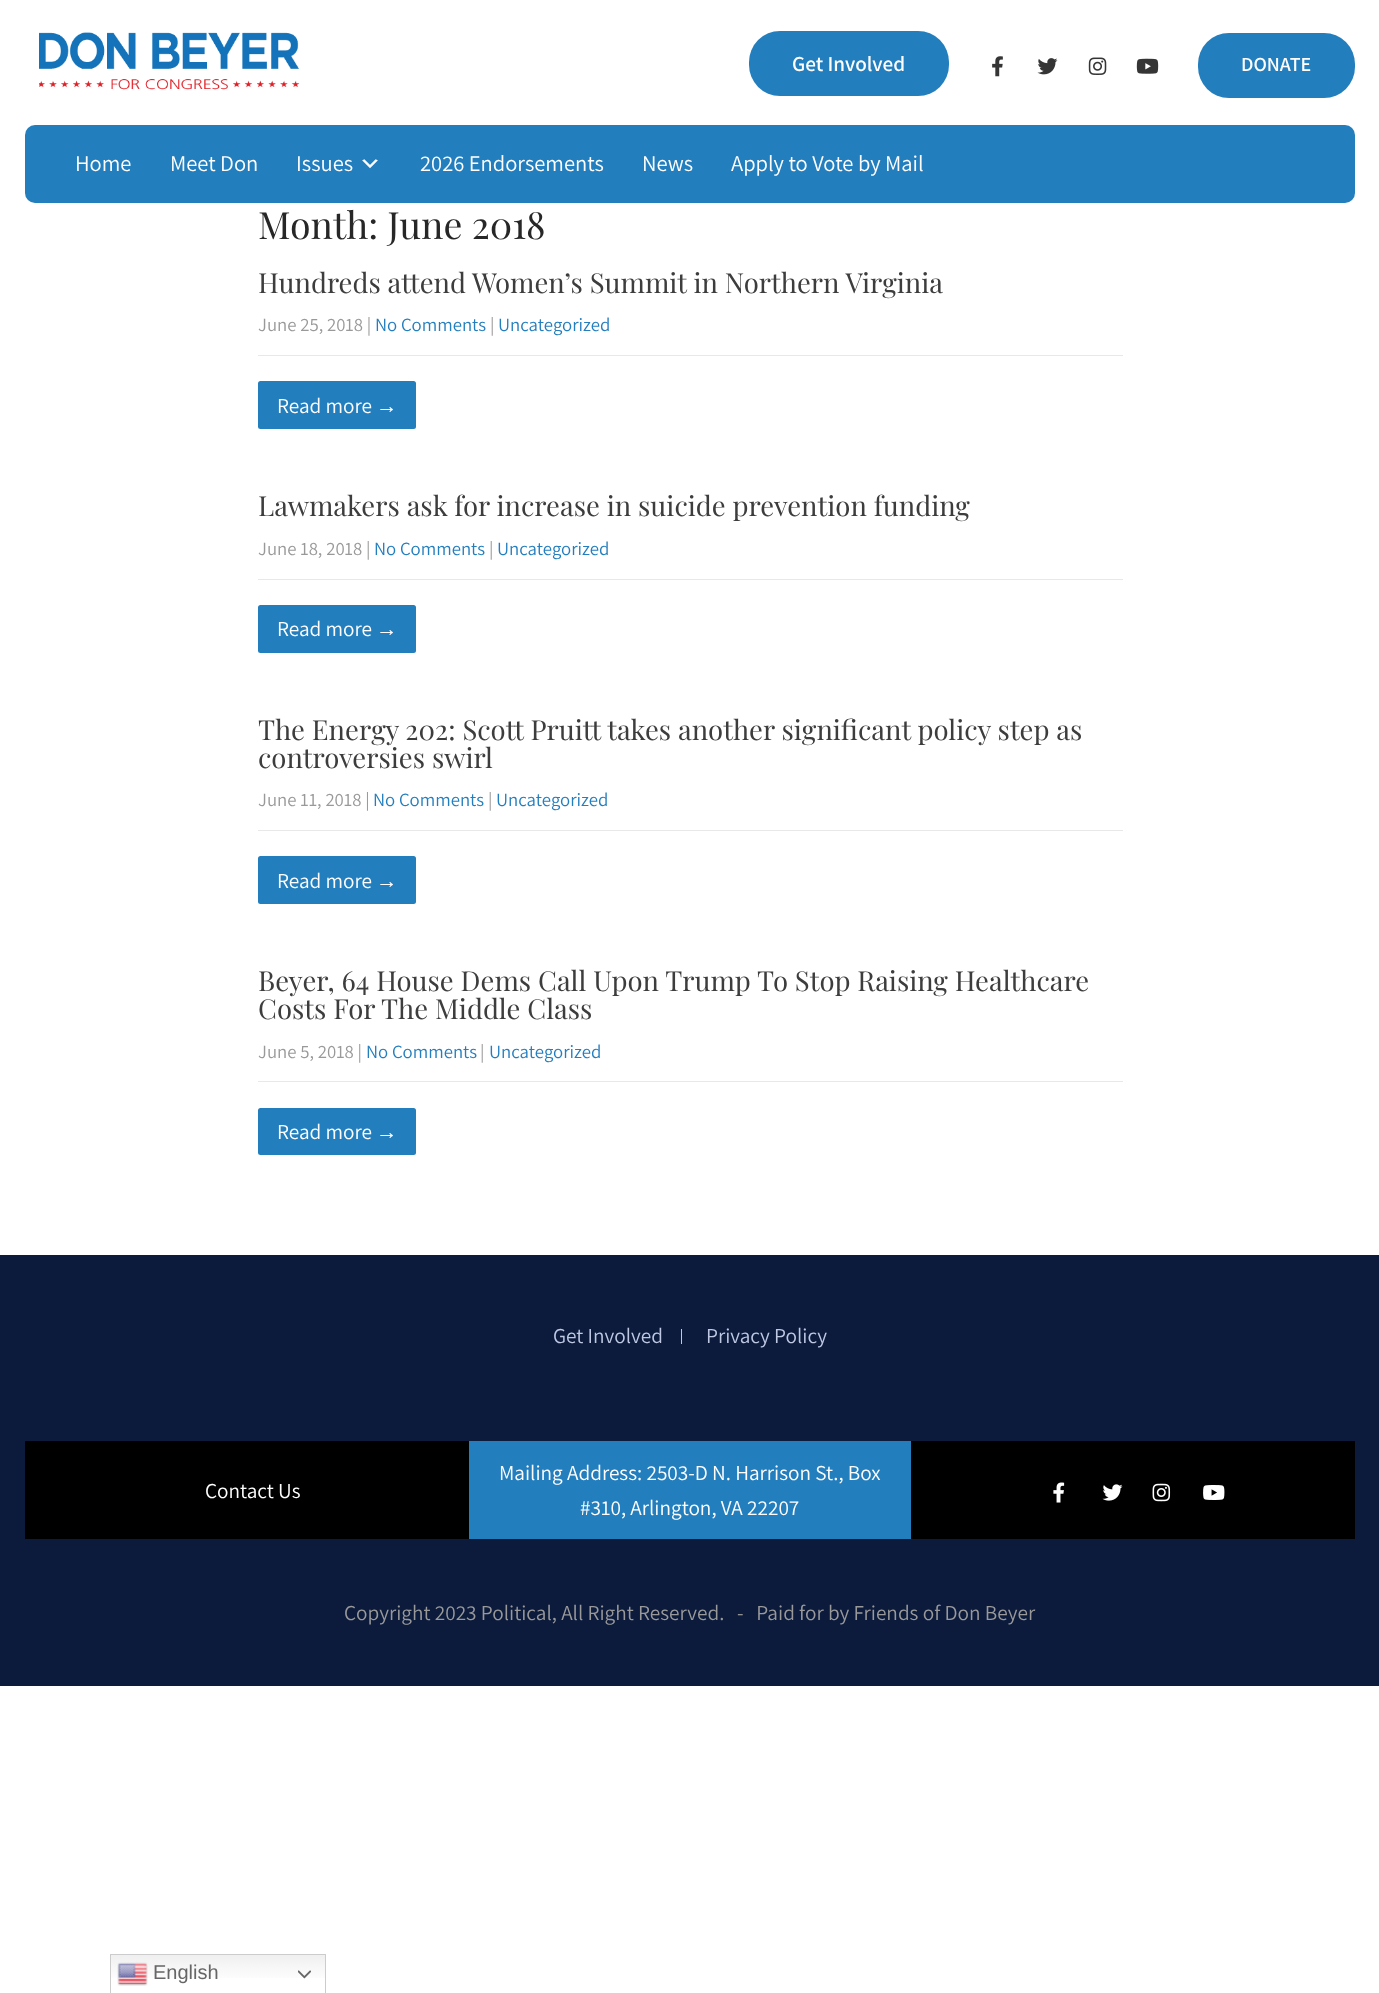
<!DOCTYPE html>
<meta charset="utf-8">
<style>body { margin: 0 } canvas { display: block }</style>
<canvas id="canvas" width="1379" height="1993"></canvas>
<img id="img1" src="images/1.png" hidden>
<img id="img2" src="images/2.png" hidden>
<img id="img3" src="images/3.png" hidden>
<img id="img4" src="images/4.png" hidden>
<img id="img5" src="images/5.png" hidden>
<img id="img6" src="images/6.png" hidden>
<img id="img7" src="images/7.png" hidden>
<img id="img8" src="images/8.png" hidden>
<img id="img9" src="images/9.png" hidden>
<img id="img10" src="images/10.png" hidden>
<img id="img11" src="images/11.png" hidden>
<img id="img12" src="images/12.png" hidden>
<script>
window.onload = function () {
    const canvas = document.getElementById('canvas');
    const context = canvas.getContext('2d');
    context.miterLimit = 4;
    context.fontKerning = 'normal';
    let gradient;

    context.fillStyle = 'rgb(255, 255, 255)';
    context.fillRect(0, 0, 1379, 1993);
    context.drawImage(document.getElementById('img1'), 39, 32, 261, 58);
    context.fillStyle = 'rgb(35, 126, 190)';
    context.beginPath();
    context.roundRect(749, 31, 200, 65, 31);
    context.fill();
    context.drawImage(document.getElementById('img2'), 992, 56, 11, 21);
    context.drawImage(document.getElementById('img3'), 1037, 58, 21, 17);
    context.drawImage(document.getElementById('img4'), 1088, 57, 19, 18);
    context.drawImage(document.getElementById('img5'), 1136, 58, 23, 16);
    context.beginPath();
    context.roundRect(1198, 33, 157, 65, 31);
    context.fill();
    context.beginPath();
    context.roundRect(25, 125, 1330, 78, 10);
    context.fill();
    context.drawImage(document.getElementById('img6'), 362, 159, 16, 10);
    context.fillStyle = 'rgb(232, 232, 232)';
    context.fillRect(258, 355, 865, 1);
    context.fillStyle = 'rgb(35, 126, 190)';
    context.beginPath();
    context.roundRect(258, 381, 158, 48, 2.5);
    context.fill();
    context.fillStyle = 'rgb(232, 232, 232)';
    context.fillRect(258, 579, 865, 1);
    context.fillStyle = 'rgb(35, 126, 190)';
    context.beginPath();
    context.roundRect(258, 605, 158, 48, 2.5);
    context.fill();
    context.fillStyle = 'rgb(232, 232, 232)';
    context.fillRect(258, 830, 865, 1);
    context.fillStyle = 'rgb(35, 126, 190)';
    context.beginPath();
    context.roundRect(258, 856, 158, 48, 2.5);
    context.fill();
    context.fillStyle = 'rgb(232, 232, 232)';
    context.fillRect(258, 1081, 865, 1);
    context.fillStyle = 'rgb(35, 126, 190)';
    context.beginPath();
    context.roundRect(258, 1108, 158, 47, 2.5);
    context.fill();
    context.fillStyle = 'rgb(12, 27, 60)';
    context.fillRect(0, 1255, 1379, 431);
    context.fillStyle = 'rgb(190, 200, 227)';
    context.fillRect(681, 1329, 1, 15);
    context.fillStyle = 'rgb(0, 0, 0)';
    context.fillRect(25, 1441, 444, 98);
    context.fillStyle = 'rgb(35, 126, 190)';
    context.fillRect(469, 1441, 442, 98);
    context.fillStyle = 'rgb(0, 0, 0)';
    context.fillRect(911, 1441, 444, 98);
    context.drawImage(document.getElementById('img7'), 1053, 1482, 12, 21);
    context.drawImage(document.getElementById('img8'), 1102, 1484, 21, 17);
    context.drawImage(document.getElementById('img9'), 1152, 1483, 19, 19);
    context.drawImage(document.getElementById('img10'), 1203, 1485, 22, 15);
    gradient = context.createLinearGradient(218, 1954, 218, 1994);
    gradient.addColorStop(0, 'rgb(239, 239, 239)');
    gradient.addColorStop(0.7, 'rgb(255, 255, 255)');
    context.fillStyle = gradient;
    context.fillRect(111, 1955, 214, 23);
    context.strokeStyle = 'rgb(204, 204, 204)';
    context.strokeRect(110.5, 1954.5, 215, 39);
    context.drawImage(document.getElementById('img11'), 117, 1962, 31, 24);
    context.drawImage(document.getElementById('img12'), 298, 1970, 13, 9);
    context.font = '600 21.25px Assistant';
    context.fillStyle = 'rgb(255, 255, 255)';
    context.fillText('Get Involved', 792, 71);
    context.font = '600 20px Assistant';
    context.fillText('DONATE', 1241, 71);
    context.font = '200 22.5px Assistant';
    context.fillText('Home', 75, 171);
    context.fillText('Meet Don', 170, 171);
    context.fillText('Issues', 296, 171);
    context.fillText('2026 Endorsements', 420, 171);
    context.fillText('News', 642, 171);
    context.fillText('Apply to Vote by Mail', 731, 171);
    context.font = '37.5px Playfair Display';
    context.fillStyle = 'rgb(39, 39, 39)';
    context.fillText('Month: June 2018', 258, 239);
    context.font = '27.5px Playfair Display';
    context.fillStyle = 'rgb(61, 61, 61)';
    context.fillText('Hundreds attend Women’s Summit in Northern Virginia', 258, 293);
    context.font = '200 18.75px Assistant';
    context.fillStyle = 'rgb(153, 153, 153)';
    context.fillText('June 25, 2018 |', 258, 331);
    context.fillStyle = 'rgb(35, 126, 190)';
    context.fillText('No Comments', 375, 331);
    context.fillStyle = 'rgb(153, 153, 153)';
    context.fillText('|', 490, 331);
    context.fillStyle = 'rgb(35, 126, 190)';
    context.fillText('Uncategorized', 498, 331);
    context.font = '200 21.25px Assistant';
    context.fillStyle = 'rgb(255, 255, 255)';
    context.fillText('Read more', 277, 413);
    context.font = '21.25px Liberation Serif';
    context.fillText('→', 376, 413);
    context.font = '27.5px Playfair Display';
    context.fillStyle = 'rgb(61, 61, 61)';
    context.fillText('Lawmakers ask for increase in suicide prevention funding', 258, 516);
    context.font = '200 18.75px Assistant';
    context.fillStyle = 'rgb(153, 153, 153)';
    context.fillText('June 18, 2018 |', 258, 555);
    context.fillStyle = 'rgb(35, 126, 190)';
    context.fillText('No Comments', 374, 555);
    context.fillStyle = 'rgb(153, 153, 153)';
    context.fillText('|', 489, 555);
    context.fillStyle = 'rgb(35, 126, 190)';
    context.fillText('Uncategorized', 497, 555);
    context.font = '200 21.25px Assistant';
    context.fillStyle = 'rgb(255, 255, 255)';
    context.fillText('Read more', 277, 636);
    context.font = '21.25px Liberation Serif';
    context.fillText('→', 376, 636);
    context.font = '27.5px Playfair Display';
    context.fillStyle = 'rgb(61, 61, 61)';
    context.fillText('The Energy 202: Scott Pruitt takes another significant policy step as', 258, 740);
    context.fillText('controversies swirl', 258, 768);
    context.font = '200 18.75px Assistant';
    context.fillStyle = 'rgb(153, 153, 153)';
    context.fillText('June 11, 2018 |', 258, 806);
    context.fillStyle = 'rgb(35, 126, 190)';
    context.fillText('No Comments', 373, 806);
    context.fillStyle = 'rgb(153, 153, 153)';
    context.fillText('|', 488, 806);
    context.fillStyle = 'rgb(35, 126, 190)';
    context.fillText('Uncategorized', 496, 806);
    context.font = '200 21.25px Assistant';
    context.fillStyle = 'rgb(255, 255, 255)';
    context.fillText('Read more', 277, 888);
    context.font = '21.25px Liberation Serif';
    context.fillText('→', 376, 888);
    context.font = '27.5px Playfair Display';
    context.fillStyle = 'rgb(61, 61, 61)';
    context.fillText('Beyer, 64 House Dems Call Upon Trump To Stop Raising Healthcare', 258, 991);
    context.fillText('Costs For The Middle Class', 258, 1019);
    context.font = '200 18.75px Assistant';
    context.fillStyle = 'rgb(153, 153, 153)';
    context.fillText('June 5, 2018 |', 258, 1058);
    context.fillStyle = 'rgb(35, 126, 190)';
    context.fillText('No Comments', 366, 1058);
    context.fillStyle = 'rgb(153, 153, 153)';
    context.fillText('|', 480, 1058);
    context.fillStyle = 'rgb(35, 126, 190)';
    context.fillText('Uncategorized', 489, 1058);
    context.font = '200 21.25px Assistant';
    context.fillStyle = 'rgb(255, 255, 255)';
    context.fillText('Read more', 277, 1139);
    context.font = '21.25px Liberation Serif';
    context.fillText('→', 376, 1139);
    context.font = '200 21.25px Assistant';
    context.fillStyle = 'rgb(190, 200, 227)';
    context.fillText('Get Involved', 553, 1343);
    context.fillText('Privacy Policy', 706, 1343);
    context.fillStyle = 'rgb(255, 255, 255)';
    context.fillText('Contact Us', 205, 1498);
    context.fillText('Mailing Address: 2503-D N. Harrison St., Box', 499, 1480);
    context.fillText('#310, Arlington, VA 22207', 580, 1515);
    context.fillStyle = 'rgb(153, 153, 153)';
    context.fillText('Copyright 2023 Political, All Right Reserved.   -   Paid for by Friends of Don Beyer', 344, 1620);
    context.font = '20px Liberation Sans';
    context.fillStyle = 'rgb(102, 102, 102)';
    context.fillText('English', 153, 1979);
};
</script>
